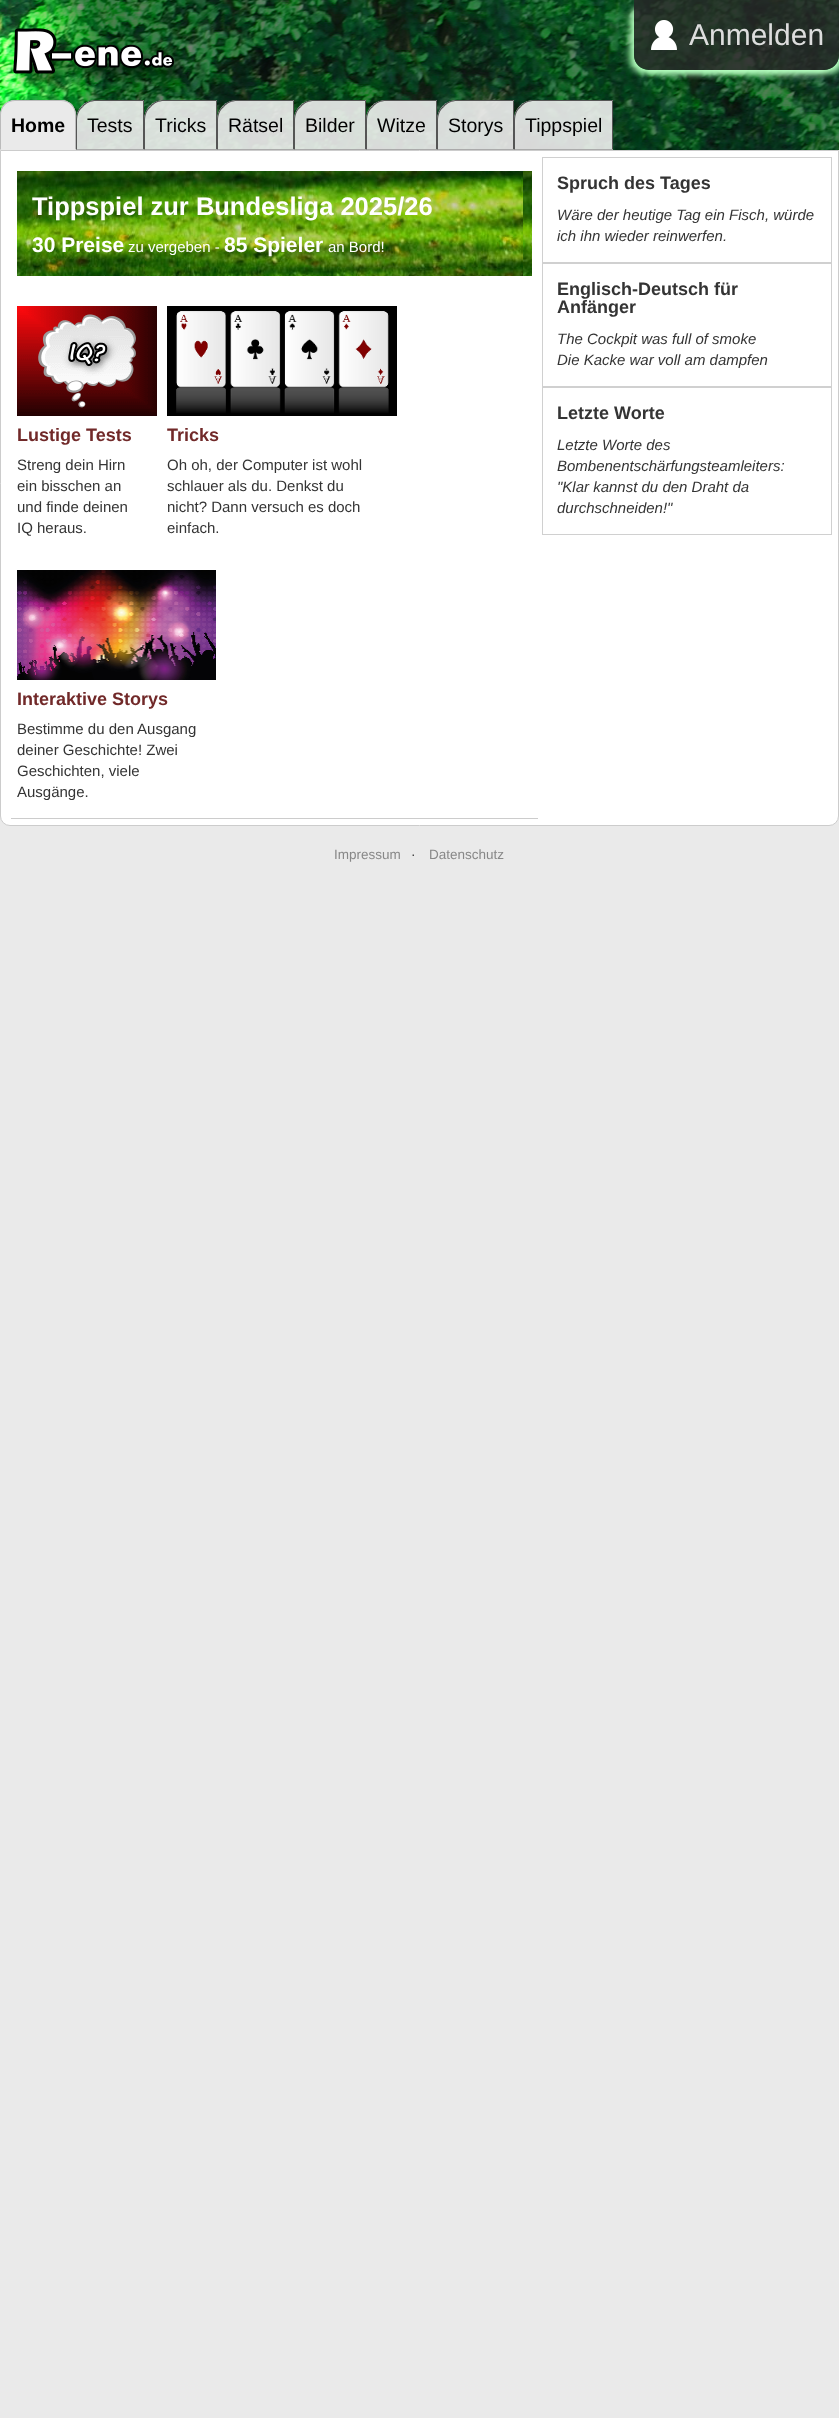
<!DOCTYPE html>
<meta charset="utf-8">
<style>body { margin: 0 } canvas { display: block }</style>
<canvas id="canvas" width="839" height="2418"></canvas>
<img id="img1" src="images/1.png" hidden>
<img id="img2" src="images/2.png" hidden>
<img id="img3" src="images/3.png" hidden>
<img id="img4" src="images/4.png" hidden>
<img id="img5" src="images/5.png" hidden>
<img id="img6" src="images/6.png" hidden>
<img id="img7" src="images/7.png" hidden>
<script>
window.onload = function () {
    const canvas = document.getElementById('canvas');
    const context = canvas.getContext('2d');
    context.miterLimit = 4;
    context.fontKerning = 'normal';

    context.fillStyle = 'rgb(234, 234, 234)';
    context.fillRect(0, 0, 839, 2418);
    context.drawImage(document.getElementById('img1'), 0, 0, 839, 150);
    context.drawImage(document.getElementById('img2'), 13, 28, 175, 64);
    context.save();
    context.beginPath();
    context.moveTo(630, 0);
    context.lineTo(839, 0);
    context.lineTo(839, 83);
    context.lineTo(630, 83);
    context.closePath();
    context.moveTo(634, 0);
    context.lineTo(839, 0);
    context.lineTo(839, 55);
    context.bezierCurveTo(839, 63.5, 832.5, 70, 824, 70);
    context.lineTo(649, 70);
    context.bezierCurveTo(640.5, 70, 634, 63.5, 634, 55);
    context.closePath();
    context.clip('evenodd');
    context.fillStyle = 'rgb(181, 255, 191)';
    context.filter = 'blur(3px)';
    context.beginPath();
    context.roundRect(640, 5, 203, 68, 14);
    context.fill();
    context.filter = 'none';
    context.restore();
    context.save();
    context.beginPath();
    context.moveTo(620, 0);
    context.lineTo(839, 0);
    context.lineTo(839, 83);
    context.lineTo(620, 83);
    context.closePath();
    context.moveTo(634, 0);
    context.lineTo(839, 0);
    context.lineTo(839, 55);
    context.bezierCurveTo(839, 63.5, 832.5, 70, 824, 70);
    context.lineTo(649, 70);
    context.bezierCurveTo(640.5, 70, 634, 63.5, 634, 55);
    context.closePath();
    context.clip('evenodd');
    context.fillStyle = 'rgb(181, 255, 191)';
    context.filter = 'blur(3px)';
    context.beginPath();
    context.roundRect(630, 5, 203, 68, 14);
    context.fill();
    context.filter = 'none';
    context.restore();
    context.fillStyle = 'rgba(40, 40, 40, 0.8)';
    context.beginPath();
    context.roundRect(634, 0, 205, 70, [0, 0, 15, 15]);
    context.fill();
    context.drawImage(document.getElementById('img3'), 651, 20, 26, 30);
    context.fillStyle = 'rgb(234, 234, 234)';
    context.beginPath();
    context.roundRect(0, 100, 76, 50, [15, 15, 0, 0]);
    context.fill();
    context.fillStyle = 'rgb(187, 187, 187)';
    context.beginPath();
    context.moveTo(15, 100);
    context.bezierCurveTo(11, 100, 7, 102, 4, 104);
    context.lineTo(5, 105);
    context.bezierCurveTo(8, 102, 11, 101, 15, 101);
    context.lineTo(61, 101);
    context.bezierCurveTo(65, 101, 68, 102, 71, 105);
    context.lineTo(72, 104);
    context.bezierCurveTo(69, 102, 65, 100, 61, 100);
    context.closePath();
    context.fill();
    context.beginPath();
    context.moveTo(76, 150);
    context.lineTo(76, 115);
    context.bezierCurveTo(76, 111, 74, 107, 72, 104);
    context.lineTo(71, 105);
    context.bezierCurveTo(74, 108, 75, 111, 75, 115);
    context.lineTo(75, 149);
    context.closePath();
    context.fill();
    context.fillStyle = 'rgb(234, 234, 234)';
    context.beginPath();
    context.moveTo(76, 150);
    context.lineTo(75, 149);
    context.lineTo(1, 149);
    context.lineTo(0, 150);
    context.closePath();
    context.fill();
    context.fillStyle = 'rgb(187, 187, 187)';
    context.beginPath();
    context.moveTo(0, 150);
    context.lineTo(1, 149);
    context.lineTo(1, 115);
    context.bezierCurveTo(1, 111, 2, 108, 5, 105);
    context.lineTo(4, 104);
    context.bezierCurveTo(2, 107, 0, 111, 0, 115);
    context.closePath();
    context.fill();
    context.fillStyle = 'rgba(240, 240, 240, 0.9)';
    context.beginPath();
    context.roundRect(76, 100, 68, 50, [20, 0, 0, 0]);
    context.fill();
    context.fillStyle = 'rgb(85, 85, 85)';
    context.beginPath();
    context.moveTo(96, 100);
    context.bezierCurveTo(90, 100, 86, 102, 82, 106);
    context.lineTo(83, 107);
    context.bezierCurveTo(86, 103, 91, 101, 96, 101);
    context.lineTo(143, 101);
    context.lineTo(144, 100);
    context.closePath();
    context.fill();
    context.beginPath();
    context.moveTo(144, 100);
    context.lineTo(143, 101);
    context.lineTo(143, 149);
    context.lineTo(144, 150);
    context.closePath();
    context.fill();
    context.fillStyle = 'rgb(170, 170, 170)';
    context.beginPath();
    context.moveTo(144, 150);
    context.lineTo(143, 149);
    context.lineTo(77, 149);
    context.lineTo(76, 150);
    context.closePath();
    context.fill();
    context.fillStyle = 'rgb(85, 85, 85)';
    context.beginPath();
    context.moveTo(76, 150);
    context.lineTo(77, 149);
    context.lineTo(77, 120);
    context.bezierCurveTo(77, 115, 79, 110, 83, 107);
    context.lineTo(82, 106);
    context.bezierCurveTo(78, 110, 76, 114, 76, 120);
    context.closePath();
    context.fill();
    context.fillStyle = 'rgba(240, 240, 240, 0.9)';
    context.beginPath();
    context.roundRect(144, 100, 73, 50, [20, 0, 0, 0]);
    context.fill();
    context.fillStyle = 'rgb(85, 85, 85)';
    context.beginPath();
    context.moveTo(164, 100);
    context.bezierCurveTo(158, 100, 154, 102, 150, 106);
    context.lineTo(151, 107);
    context.bezierCurveTo(154, 103, 159, 101, 164, 101);
    context.lineTo(216, 101);
    context.lineTo(217, 100);
    context.closePath();
    context.fill();
    context.beginPath();
    context.moveTo(217, 100);
    context.lineTo(216, 101);
    context.lineTo(216, 149);
    context.lineTo(217, 150);
    context.closePath();
    context.fill();
    context.fillStyle = 'rgb(170, 170, 170)';
    context.beginPath();
    context.moveTo(217, 150);
    context.lineTo(216, 149);
    context.lineTo(145, 149);
    context.lineTo(144, 150);
    context.closePath();
    context.fill();
    context.fillStyle = 'rgb(85, 85, 85)';
    context.beginPath();
    context.moveTo(144, 150);
    context.lineTo(145, 149);
    context.lineTo(145, 120);
    context.bezierCurveTo(145, 115, 147, 110, 151, 107);
    context.lineTo(150, 106);
    context.bezierCurveTo(146, 110, 144, 114, 144, 120);
    context.closePath();
    context.fill();
    context.fillStyle = 'rgba(240, 240, 240, 0.9)';
    context.beginPath();
    context.roundRect(217, 100, 77, 50, [20, 0, 0, 0]);
    context.fill();
    context.fillStyle = 'rgb(85, 85, 85)';
    context.beginPath();
    context.moveTo(237, 100);
    context.bezierCurveTo(232, 100, 226, 102, 223, 106);
    context.lineTo(224, 107);
    context.bezierCurveTo(227, 103, 232, 101, 237, 101);
    context.lineTo(293, 101);
    context.lineTo(294, 100);
    context.closePath();
    context.fill();
    context.beginPath();
    context.moveTo(294, 100);
    context.lineTo(293, 101);
    context.lineTo(293, 149);
    context.lineTo(294, 150);
    context.closePath();
    context.fill();
    context.fillStyle = 'rgb(170, 170, 170)';
    context.beginPath();
    context.moveTo(294, 150);
    context.lineTo(293, 149);
    context.lineTo(218, 149);
    context.lineTo(217, 150);
    context.closePath();
    context.fill();
    context.fillStyle = 'rgb(85, 85, 85)';
    context.beginPath();
    context.moveTo(217, 150);
    context.lineTo(218, 149);
    context.lineTo(218, 120);
    context.bezierCurveTo(218, 115, 220, 110, 224, 107);
    context.lineTo(223, 106);
    context.bezierCurveTo(219, 110, 217, 114, 217, 120);
    context.closePath();
    context.fill();
    context.fillStyle = 'rgba(240, 240, 240, 0.9)';
    context.beginPath();
    context.roundRect(294, 100, 72, 50, [20, 0, 0, 0]);
    context.fill();
    context.fillStyle = 'rgb(85, 85, 85)';
    context.beginPath();
    context.moveTo(314, 100);
    context.bezierCurveTo(308, 100, 304, 102, 300, 106);
    context.lineTo(301, 107);
    context.bezierCurveTo(304, 103, 309, 101, 314, 101);
    context.lineTo(365, 101);
    context.lineTo(366, 100);
    context.closePath();
    context.fill();
    context.beginPath();
    context.moveTo(366, 100);
    context.lineTo(365, 101);
    context.lineTo(365, 149);
    context.lineTo(366, 150);
    context.closePath();
    context.fill();
    context.fillStyle = 'rgb(170, 170, 170)';
    context.beginPath();
    context.moveTo(366, 150);
    context.lineTo(365, 149);
    context.lineTo(295, 149);
    context.lineTo(294, 150);
    context.closePath();
    context.fill();
    context.fillStyle = 'rgb(85, 85, 85)';
    context.beginPath();
    context.moveTo(294, 150);
    context.lineTo(295, 149);
    context.lineTo(295, 120);
    context.bezierCurveTo(295, 115, 297, 110, 301, 107);
    context.lineTo(300, 106);
    context.bezierCurveTo(296, 110, 294, 114, 294, 120);
    context.closePath();
    context.fill();
    context.fillStyle = 'rgba(240, 240, 240, 0.9)';
    context.beginPath();
    context.roundRect(366, 100, 71, 50, [20, 0, 0, 0]);
    context.fill();
    context.fillStyle = 'rgb(85, 85, 85)';
    context.beginPath();
    context.moveTo(386, 100);
    context.bezierCurveTo(380, 100, 376, 102, 372, 106);
    context.lineTo(373, 107);
    context.bezierCurveTo(376, 103, 381, 101, 386, 101);
    context.lineTo(436, 101);
    context.lineTo(437, 100);
    context.closePath();
    context.fill();
    context.beginPath();
    context.moveTo(437, 100);
    context.lineTo(436, 101);
    context.lineTo(436, 149);
    context.lineTo(437, 150);
    context.closePath();
    context.fill();
    context.fillStyle = 'rgb(170, 170, 170)';
    context.beginPath();
    context.moveTo(437, 150);
    context.lineTo(436, 149);
    context.lineTo(367, 149);
    context.lineTo(366, 150);
    context.closePath();
    context.fill();
    context.fillStyle = 'rgb(85, 85, 85)';
    context.beginPath();
    context.moveTo(366, 150);
    context.lineTo(367, 149);
    context.lineTo(367, 120);
    context.bezierCurveTo(367, 115, 369, 110, 373, 107);
    context.lineTo(372, 106);
    context.bezierCurveTo(368, 110, 366, 114, 366, 120);
    context.closePath();
    context.fill();
    context.fillStyle = 'rgba(240, 240, 240, 0.9)';
    context.beginPath();
    context.roundRect(437, 100, 77, 50, [20, 0, 0, 0]);
    context.fill();
    context.fillStyle = 'rgb(85, 85, 85)';
    context.beginPath();
    context.moveTo(457, 100);
    context.bezierCurveTo(452, 100, 446, 102, 443, 106);
    context.lineTo(444, 107);
    context.bezierCurveTo(447, 103, 452, 101, 457, 101);
    context.lineTo(513, 101);
    context.lineTo(514, 100);
    context.closePath();
    context.fill();
    context.beginPath();
    context.moveTo(514, 100);
    context.lineTo(513, 101);
    context.lineTo(513, 149);
    context.lineTo(514, 150);
    context.closePath();
    context.fill();
    context.fillStyle = 'rgb(170, 170, 170)';
    context.beginPath();
    context.moveTo(514, 150);
    context.lineTo(513, 149);
    context.lineTo(438, 149);
    context.lineTo(437, 150);
    context.closePath();
    context.fill();
    context.fillStyle = 'rgb(85, 85, 85)';
    context.beginPath();
    context.moveTo(437, 150);
    context.lineTo(438, 149);
    context.lineTo(438, 120);
    context.bezierCurveTo(438, 115, 440, 110, 444, 107);
    context.lineTo(443, 106);
    context.bezierCurveTo(439, 110, 437, 114, 437, 120);
    context.closePath();
    context.fill();
    context.fillStyle = 'rgba(240, 240, 240, 0.9)';
    context.beginPath();
    context.roundRect(514, 100, 99, 50, [20, 0, 0, 0]);
    context.fill();
    context.fillStyle = 'rgb(85, 85, 85)';
    context.beginPath();
    context.moveTo(534, 100);
    context.bezierCurveTo(528, 100, 524, 102, 520, 106);
    context.lineTo(521, 107);
    context.bezierCurveTo(524, 103, 529, 101, 534, 101);
    context.lineTo(612, 101);
    context.lineTo(613, 100);
    context.closePath();
    context.fill();
    context.beginPath();
    context.moveTo(613, 100);
    context.lineTo(612, 101);
    context.lineTo(612, 149);
    context.lineTo(613, 150);
    context.closePath();
    context.fill();
    context.fillStyle = 'rgb(170, 170, 170)';
    context.beginPath();
    context.moveTo(613, 150);
    context.lineTo(612, 149);
    context.lineTo(515, 149);
    context.lineTo(514, 150);
    context.closePath();
    context.fill();
    context.fillStyle = 'rgb(85, 85, 85)';
    context.beginPath();
    context.moveTo(514, 150);
    context.lineTo(515, 149);
    context.lineTo(515, 120);
    context.bezierCurveTo(515, 115, 517, 110, 521, 107);
    context.lineTo(520, 106);
    context.bezierCurveTo(516, 110, 514, 114, 514, 120);
    context.closePath();
    context.fill();
    context.fillStyle = 'rgb(255, 255, 255)';
    context.beginPath();
    context.roundRect(0.5, 150.5, 838, 675, [0, 0, 9.5, 9.5]);
    context.fill();
    context.strokeStyle = 'rgb(204, 204, 204)';
    context.stroke();
    context.drawImage(document.getElementById('img4'), 17, 171, 515, 105);
    context.drawImage(document.getElementById('img5'), 17, 306, 140, 110);
    context.drawImage(document.getElementById('img6'), 167, 306, 230, 110);
    context.drawImage(document.getElementById('img7'), 17, 570, 199, 110);
    context.fillStyle = 'rgb(204, 204, 204)';
    context.fillRect(11, 818, 527, 1);
    context.strokeStyle = 'rgb(208, 208, 208)';
    context.strokeRect(542.5, 157.5, 289, 105);
    context.strokeRect(542.5, 263.5, 289, 123);
    context.strokeRect(542.5, 387.5, 289, 147);
    context.font = '30px Liberation Sans';
    context.fillStyle = 'rgb(221, 221, 221)';
    context.fillText('Anmelden', 689, 45);
    context.font = 'bold 19.5px Liberation Sans';
    context.fillStyle = 'rgb(0, 0, 0)';
    context.fillText('Home', 11, 132);
    context.font = '19.5px Liberation Sans';
    context.fillText('Tests', 87, 132);
    context.fillText('Tricks', 155, 132);
    context.fillText('Rätsel', 228, 132);
    context.fillText('Bilder', 305, 132);
    context.fillText('Witze', 377, 132);
    context.fillText('Storys', 448, 132);
    context.fillText('Tippspiel', 525, 132);
    context.font = 'bold 25.5px Liberation Sans';
    context.fillStyle = 'rgb(255, 255, 255)';
    context.fillText('Tippspiel zur Bundesliga 2025/26', 32, 215);
    context.font = 'bold 21px Liberation Sans';
    context.fillText('30 Preise', 32, 252);
    context.font = '15px Liberation Sans';
    context.fillText('zu vergeben -', 128, 252);
    context.font = 'bold 21px Liberation Sans';
    context.fillText('85 Spieler', 224, 252);
    context.font = '15px Liberation Sans';
    context.fillText('an Bord!', 328, 252);
    context.font = 'bold 18px Liberation Sans';
    context.fillStyle = 'rgb(113, 41, 41)';
    context.fillText('Lustige Tests', 17, 441);
    context.font = '15px Liberation Sans';
    context.fillStyle = 'rgb(52, 52, 52)';
    context.fillText('Streng dein Hirn', 17, 470);
    context.fillText('ein bisschen an', 17, 491);
    context.fillText('und finde deinen', 17, 512);
    context.fillText('IQ heraus.', 17, 533);
    context.font = 'bold 18px Liberation Sans';
    context.fillStyle = 'rgb(113, 41, 41)';
    context.fillText('Tricks', 167, 441);
    context.font = '15px Liberation Sans';
    context.fillStyle = 'rgb(52, 52, 52)';
    context.fillText('Oh oh, der Computer ist wohl', 167, 470);
    context.fillText('schlauer als du. Denkst du', 167, 491);
    context.fillText('nicht? Dann versuch es doch', 167, 512);
    context.fillText('einfach.', 167, 533);
    context.font = 'bold 18px Liberation Sans';
    context.fillStyle = 'rgb(113, 41, 41)';
    context.fillText('Interaktive Storys', 17, 705);
    context.font = '15px Liberation Sans';
    context.fillStyle = 'rgb(52, 52, 52)';
    context.fillText('Bestimme du den Ausgang', 17, 734);
    context.fillText('deiner Geschichte! Zwei', 17, 755);
    context.fillText('Geschichten, viele', 17, 776);
    context.fillText('Ausgänge.', 17, 797);
    context.font = 'bold 18px Liberation Sans';
    context.fillText('Spruch des Tages', 557, 189);
    context.font = 'italic 15px Liberation Sans';
    context.fillText('Wäre der heutige Tag ein Fisch, würde', 557, 220);
    context.fillText('ich ihn wieder reinwerfen.', 557, 241);
    context.font = 'bold 18px Liberation Sans';
    context.fillText('Englisch-Deutsch für', 557, 295);
    context.fillText('Anfänger', 557, 313);
    context.font = 'italic 15px Liberation Sans';
    context.fillText('The Cockpit was full of smoke', 557, 344);
    context.fillText('Die Kacke war voll am dampfen', 557, 365);
    context.font = 'bold 18px Liberation Sans';
    context.fillText('Letzte Worte', 557, 419);
    context.font = 'italic 15px Liberation Sans';
    context.fillText('Letzte Worte des', 557, 450);
    context.fillText('Bombenentschärfungsteamleiters:', 557, 471);
    context.fillText('"Klar kannst du den Draht da', 557, 492);
    context.fillText('durchschneiden!"', 557, 513);
    context.font = '13.5px Liberation Sans';
    context.fillStyle = 'rgb(136, 136, 136)';
    context.fillText('Impressum', 334, 859);
    context.fillStyle = 'rgb(52, 52, 52)';
    context.fillText('·', 411, 859);
    context.fillStyle = 'rgb(136, 136, 136)';
    context.fillText('Datenschutz', 429, 859);
};
</script>
